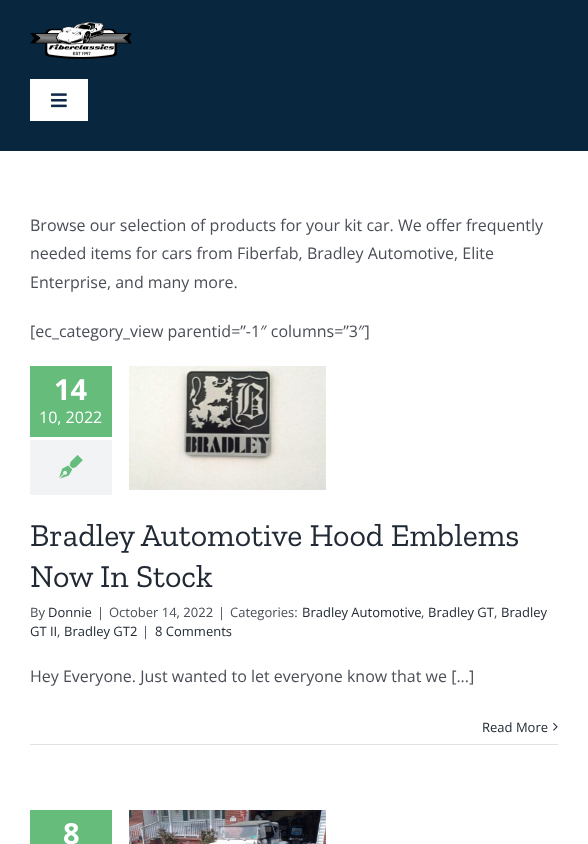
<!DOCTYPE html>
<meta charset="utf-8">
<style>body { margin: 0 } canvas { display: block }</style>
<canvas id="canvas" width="588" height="844"></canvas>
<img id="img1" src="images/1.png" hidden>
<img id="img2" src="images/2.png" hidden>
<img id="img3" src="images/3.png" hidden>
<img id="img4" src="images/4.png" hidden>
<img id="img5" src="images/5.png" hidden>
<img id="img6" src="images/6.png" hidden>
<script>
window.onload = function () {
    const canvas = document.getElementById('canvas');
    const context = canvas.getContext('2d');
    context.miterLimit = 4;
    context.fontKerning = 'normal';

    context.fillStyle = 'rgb(255, 255, 255)';
    context.fillRect(0, 0, 588, 844);
    context.fillStyle = 'rgb(9, 38, 63)';
    context.fillRect(0, 0, 588, 151);
    context.drawImage(document.getElementById('img1'), 30, 22, 102, 37);
    context.fillStyle = 'rgb(255, 255, 255)';
    context.fillRect(30, 79, 58, 42);
    context.drawImage(document.getElementById('img2'), 51, 93, 16, 15);
    context.fillStyle = 'rgb(101, 188, 123)';
    context.fillRect(30, 366, 82, 71);
    context.fillStyle = 'rgb(242, 243, 245)';
    context.fillRect(30, 440, 82, 55);
    context.drawImage(document.getElementById('img3'), 59, 455, 24, 24);
    context.drawImage(document.getElementById('img4'), 129, 366, 197, 124);
    context.fillStyle = 'rgb(226, 226, 226)';
    context.fillRect(30, 744, 528, 1);
    context.drawImage(document.getElementById('img5'), 553, 722, 5, 9);
    context.fillStyle = 'rgb(101, 188, 123)';
    context.fillRect(30, 810, 82, 34);
    context.drawImage(document.getElementById('img6'), 129, 810, 197, 34);
    context.font = '16px Open Sans';
    context.fillStyle = 'rgb(74, 78, 87)';
    context.fillText('Browse our selection of products for your kit car. We offer frequently', 30, 231);
    context.fillText('needed items for cars from Fiberfab, Bradley Automotive, Elite', 30, 259);
    context.fillText('Enterprise, and many more.', 30, 288);
    context.fillText('[ec_category_view parentid=”-1″ columns=”3″]', 30, 337);
    context.font = 'bold 29px Open Sans';
    context.fillStyle = 'rgb(255, 255, 255)';
    context.fillText('14', 54, 400);
    context.font = '16px Open Sans';
    context.fillText('10, 2022', 39, 423);
    context.font = '32px Zilla Slab';
    context.fillStyle = 'rgb(33, 41, 52)';
    context.fillText('Bradley Automotive Hood Emblems', 30, 546);
    context.fillText('Now In Stock', 30, 587);
    context.font = '13px Open Sans';
    context.fillStyle = 'rgb(74, 78, 87)';
    context.fillText('By', 30, 617);
    context.fillStyle = 'rgb(33, 41, 52)';
    context.fillText('Donnie', 48, 617);
    context.fillStyle = 'rgb(74, 78, 87)';
    context.fillText('|', 97, 617);
    context.fillText('October 14, 2022', 109, 617);
    context.fillText('|', 218, 617);
    context.fillText('Categories:', 230, 617);
    context.fillStyle = 'rgb(33, 41, 52)';
    context.fillText('Bradley Automotive', 302, 617);
    context.fillStyle = 'rgb(74, 78, 87)';
    context.fillText(',', 421, 617);
    context.fillStyle = 'rgb(33, 41, 52)';
    context.fillText('Bradley GT', 428, 617);
    context.fillStyle = 'rgb(74, 78, 87)';
    context.fillText(',', 494, 617);
    context.fillStyle = 'rgb(33, 41, 52)';
    context.fillText('Bradley', 501, 617);
    context.fillText('GT II', 30, 636);
    context.fillStyle = 'rgb(74, 78, 87)';
    context.fillText(',', 57, 636);
    context.fillStyle = 'rgb(33, 41, 52)';
    context.fillText('Bradley GT2', 64, 636);
    context.fillStyle = 'rgb(74, 78, 87)';
    context.fillText('|', 142, 636);
    context.fillStyle = 'rgb(33, 41, 52)';
    context.fillText('8 Comments', 155, 636);
    context.font = '16px Open Sans';
    context.fillStyle = 'rgb(74, 78, 87)';
    context.fillText('Hey Everyone. Just wanted to let everyone know that we [...]', 30, 682);
    context.font = '13px Open Sans';
    context.fillStyle = 'rgb(33, 41, 52)';
    context.fillText('Read More', 482, 732);
    context.font = 'bold 29px Open Sans';
    context.fillStyle = 'rgb(255, 255, 255)';
    context.fillText('8', 63, 844);
};
</script>
